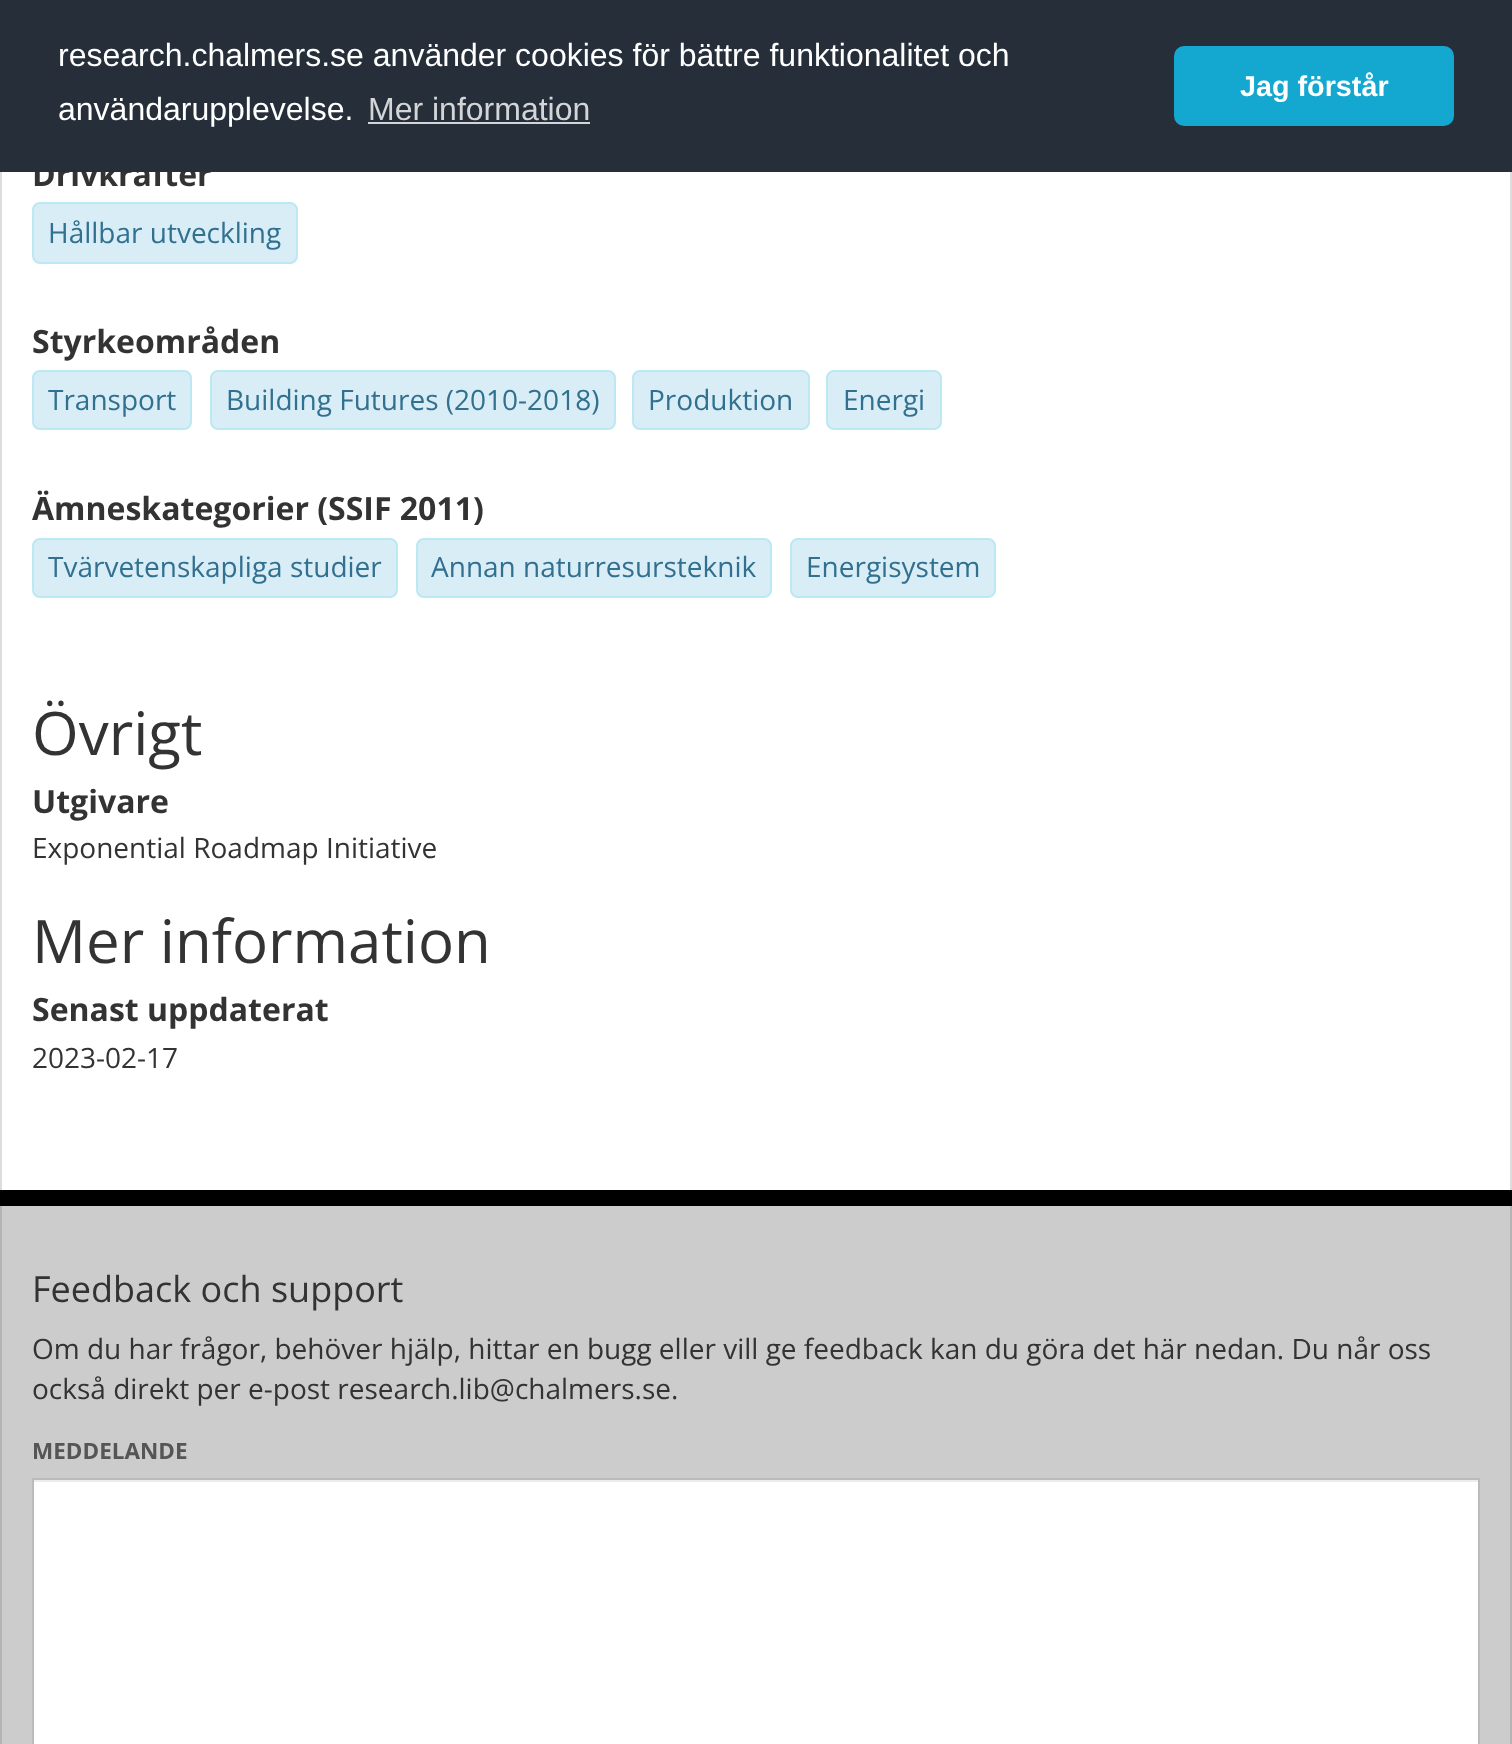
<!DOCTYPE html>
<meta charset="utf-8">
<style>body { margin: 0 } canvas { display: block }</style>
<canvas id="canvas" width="1512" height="1744"></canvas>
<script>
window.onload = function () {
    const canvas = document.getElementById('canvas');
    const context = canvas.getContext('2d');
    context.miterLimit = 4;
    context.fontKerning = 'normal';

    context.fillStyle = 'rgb(255, 255, 255)';
    context.fillRect(0, 0, 1512, 1744);
    context.fillStyle = 'rgb(220, 220, 220)';
    context.fillRect(1510, 172, 2, 1018);
    context.fillRect(0, 172, 2, 1018);
    context.fillStyle = 'rgb(217, 237, 247)';
    context.beginPath();
    context.roundRect(33, 203, 264, 60, 7);
    context.fill();
    context.strokeStyle = 'rgb(188, 232, 241)';
    context.lineWidth = 2;
    context.stroke();
    context.beginPath();
    context.roundRect(33, 371, 158, 58, 7);
    context.fill();
    context.stroke();
    context.beginPath();
    context.roundRect(211, 371, 404, 58, 7);
    context.fill();
    context.stroke();
    context.beginPath();
    context.roundRect(633, 371, 176, 58, 7);
    context.fill();
    context.stroke();
    context.beginPath();
    context.roundRect(827, 371, 114, 58, 7);
    context.fill();
    context.stroke();
    context.beginPath();
    context.roundRect(33, 539, 364, 58, 7);
    context.fill();
    context.stroke();
    context.beginPath();
    context.roundRect(417, 539, 354, 58, 7);
    context.fill();
    context.stroke();
    context.beginPath();
    context.roundRect(791, 539, 204, 58, 7);
    context.fill();
    context.stroke();
    context.fillStyle = 'rgb(204, 204, 204)';
    context.fillRect(2, 1206, 1508, 538);
    context.fillStyle = 'rgb(0, 0, 0)';
    context.fillRect(0, 1190, 1512, 16);
    context.fillStyle = 'rgb(180, 180, 180)';
    context.fillRect(1510, 1206, 2, 538);
    context.fillRect(0, 1206, 2, 538);
    context.fillStyle = 'rgb(255, 255, 255)';
    context.fillRect(34, 1482, 1444, 262);
    context.fillStyle = 'rgb(236, 236, 236)';
    context.fillRect(34, 1480, 1444, 2);
    context.strokeStyle = 'rgb(187, 187, 187)';
    context.strokeRect(33, 1479, 1446, 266);
    context.font = 'bold 32px Open Sans';
    context.fillStyle = 'rgb(51, 51, 51)';
    context.fillText('Drivkrafter', 32, 186);
    context.fillStyle = 'rgb(37, 46, 57)';
    context.fillRect(0, 0, 1512, 172);
    context.font = '32px Liberation Sans';
    context.fillStyle = 'rgb(211, 213, 215)';
    context.fillText('Mer information', 368, 120);
    context.fillRect(368, 122, 222, 2);
    context.fillStyle = 'rgb(20, 167, 208)';
    context.beginPath();
    context.roundRect(1174, 46, 280, 80, 10);
    context.fill();
    context.font = 'bold 28.75px Liberation Sans';
    context.fillStyle = 'rgb(255, 255, 255)';
    context.fillText('Jag förstår', 1240, 96);
    context.font = '32px Liberation Sans';
    context.fillText('användarupplevelse.', 58, 120);
    context.fillText('research.chalmers.se använder cookies för bättre funktionalitet och', 58, 66);
    context.font = '28px Open Sans';
    context.fillStyle = 'rgb(49, 112, 143)';
    context.fillText('Hållbar utveckling', 48, 243);
    context.font = 'bold 32px Open Sans';
    context.fillStyle = 'rgb(51, 51, 51)';
    context.fillText('Styrkeområden', 32, 353);
    context.font = '28px Open Sans';
    context.fillStyle = 'rgb(49, 112, 143)';
    context.fillText('Transport', 48, 410);
    context.fillText('Building Futures (2010-2018)', 226, 410);
    context.fillText('Produktion', 648, 410);
    context.fillText('Energi', 843, 410);
    context.font = 'bold 32px Open Sans';
    context.fillStyle = 'rgb(51, 51, 51)';
    context.fillText('Ämneskategorier (SSIF 2011)', 32, 520);
    context.font = '28px Open Sans';
    context.fillStyle = 'rgb(49, 112, 143)';
    context.fillText('Tvärvetenskapliga studier', 48, 577);
    context.fillText('Annan naturresursteknik', 431, 577);
    context.fillText('Energisystem', 806, 577);
    context.font = '60px Open Sans';
    context.fillStyle = 'rgb(51, 51, 51)';
    context.fillText('Övrigt', 32, 755);
    context.font = 'bold 32px Open Sans';
    context.fillText('Utgivare', 32, 813);
    context.font = '28px Open Sans';
    context.fillText('Exponential Roadmap Initiative', 32, 858);
    context.font = '60px Open Sans';
    context.fillText('Mer information', 32, 963);
    context.font = 'bold 32px Open Sans';
    context.fillText('Senast uppdaterat', 32, 1021);
    context.font = '28px Open Sans';
    context.fillText('2023-02-17', 32, 1068);
    context.font = '36px Open Sans';
    context.fillText('Feedback och support', 32, 1302);
    context.font = '28px Open Sans';
    context.fillText('Om du har frågor, behöver hjälp, hittar en bugg eller vill ge feedback kan du göra det här nedan. Du når oss', 32, 1359);
    context.fillText('också direkt per e-post research.lib@chalmers.se.', 32, 1399);
    context.font = 'bold 22.5px Open Sans';
    context.fillStyle = 'rgb(85, 85, 85)';
    context.fillText('MEDDELANDE', 32, 1459);
};
</script>
